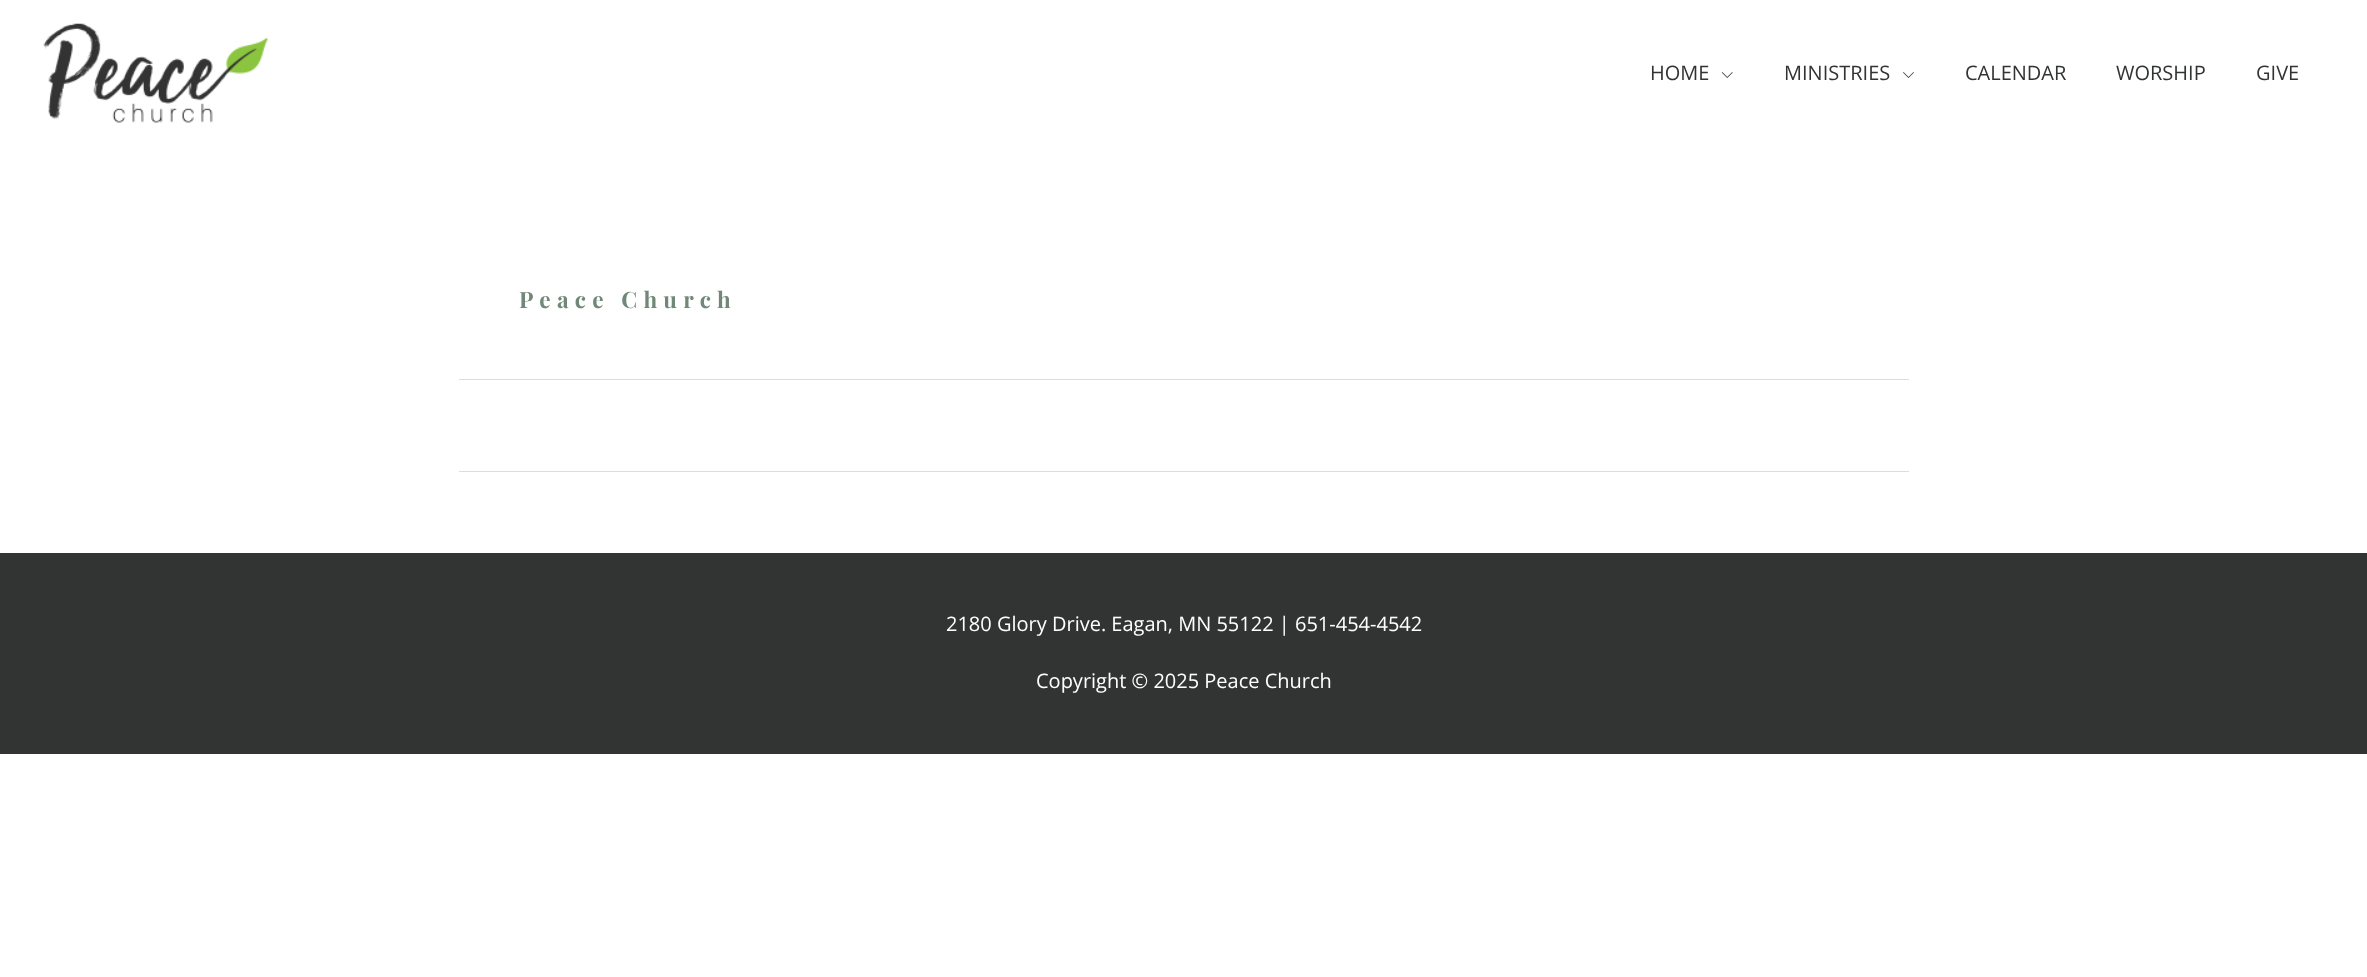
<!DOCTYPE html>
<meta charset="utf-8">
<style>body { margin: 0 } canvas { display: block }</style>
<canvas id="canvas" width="2367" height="977"></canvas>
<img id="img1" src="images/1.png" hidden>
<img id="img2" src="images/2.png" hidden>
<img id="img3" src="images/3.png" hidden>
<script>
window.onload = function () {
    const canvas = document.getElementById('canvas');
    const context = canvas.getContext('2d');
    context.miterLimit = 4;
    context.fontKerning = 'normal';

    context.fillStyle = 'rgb(255, 255, 255)';
    context.fillRect(0, 0, 2367, 977);
    context.drawImage(document.getElementById('img1'), 43, 23, 225, 100);
    context.drawImage(document.getElementById('img2'), 1721, 72, 12, 6);
    context.drawImage(document.getElementById('img3'), 1903, 72, 11, 6);
    context.fillStyle = 'rgb(221, 221, 221)';
    context.fillRect(459, 379, 1450, 1);
    context.fillRect(459, 471, 1450, 1);
    context.fillStyle = 'rgb(50, 51, 51)';
    context.fillRect(0, 553, 2367, 201);
    context.font = '20px Open Sans';
    context.fillText('HOME', 1650, 80);
    context.fillText('MINISTRIES', 1784, 80);
    context.fillText('CALENDAR', 1965, 80);
    context.fillText('WORSHIP', 2116, 80);
    context.fillText('GIVE', 2256, 80);
    context.letterSpacing = '6.25px';
    context.font = 'bold 22.5px Playfair Display';
    context.fillStyle = 'rgb(113, 136, 120)';
    context.fillText('Peace Church', 519, 308);
    context.letterSpacing = '0px';
    context.font = '20px Open Sans';
    context.fillStyle = 'rgb(255, 255, 255)';
    context.fillText('2180 Glory Drive. Eagan, MN 55122 | 651-454-4542', 946, 631);
    context.fillText('Copyright © 2025 Peace Church', 1036, 688);
};
</script>
